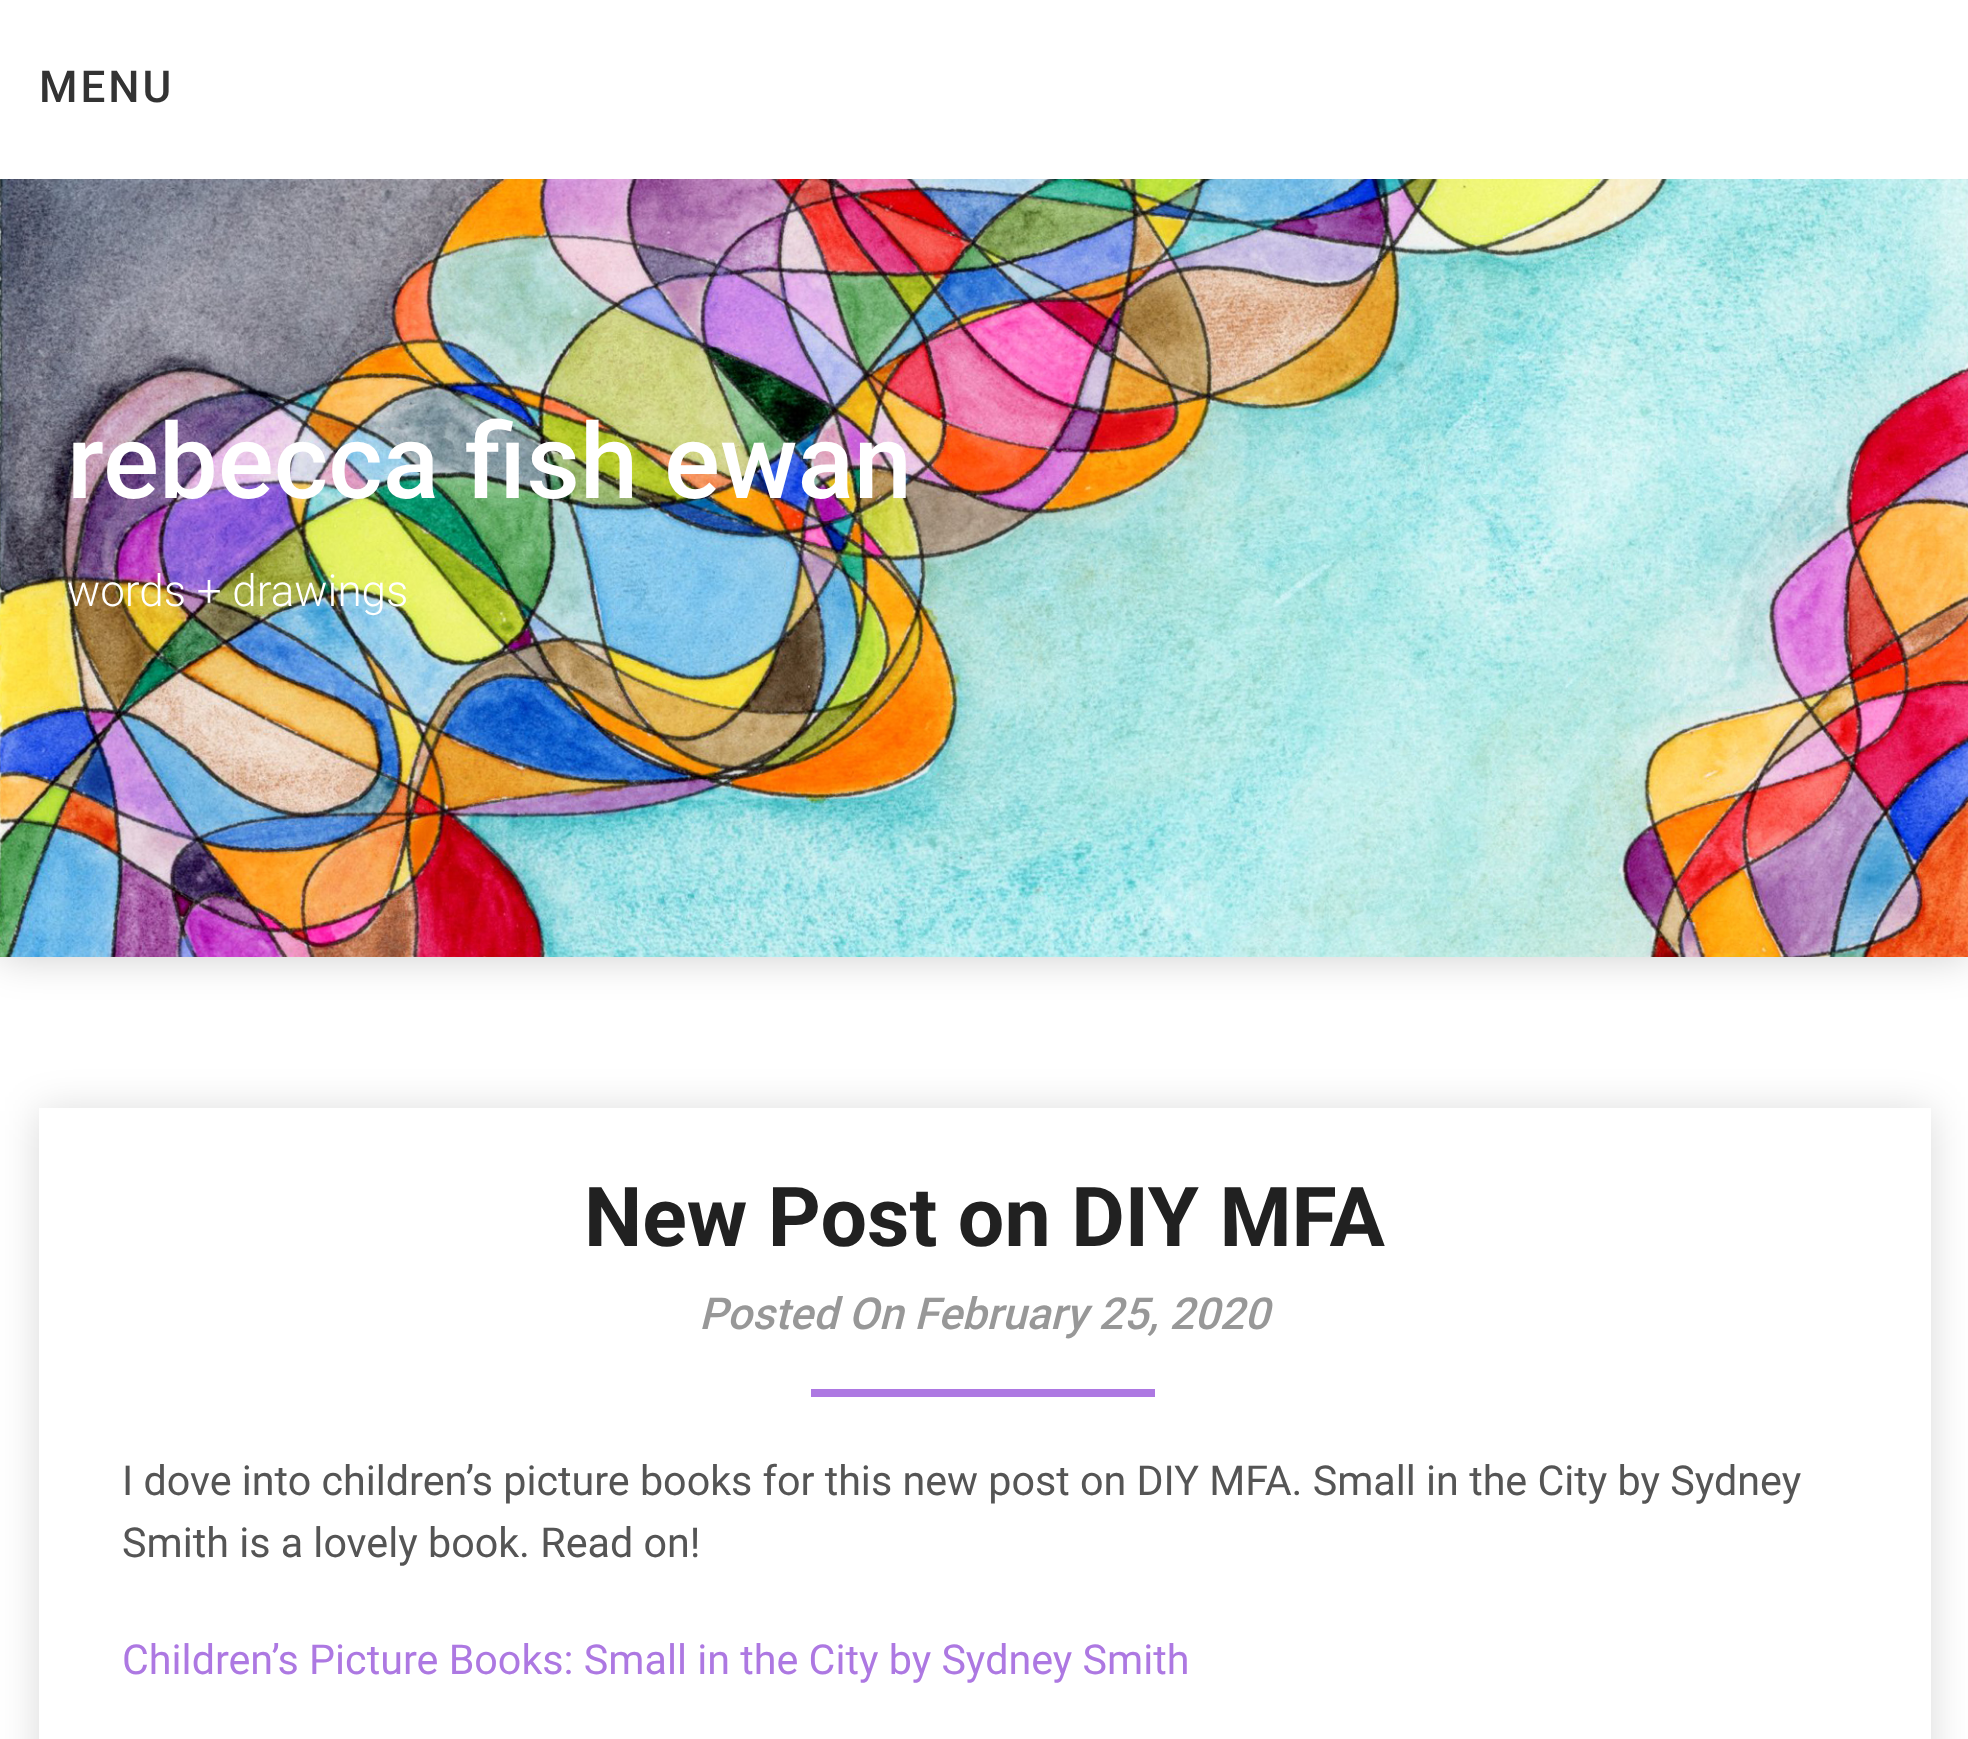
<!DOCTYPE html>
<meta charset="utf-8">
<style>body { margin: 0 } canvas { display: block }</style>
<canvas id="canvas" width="1968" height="1739"></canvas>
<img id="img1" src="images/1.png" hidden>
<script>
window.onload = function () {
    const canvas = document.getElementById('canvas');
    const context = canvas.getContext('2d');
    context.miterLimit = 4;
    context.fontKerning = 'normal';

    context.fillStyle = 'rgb(255, 255, 255)';
    context.fillRect(0, 0, 1968, 1739);
    context.fillStyle = 'rgba(0, 0, 0, 0.2)';
    context.filter = 'blur(20.5px)';
    context.beginPath();
    context.rect(0, 0, 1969, 957);
    context.fill();
    context.filter = 'none';
    context.drawImage(document.getElementById('img1'), 0, 179, 1968, 778);
    context.fillStyle = 'rgb(255, 255, 255)';
    context.fillRect(0, 0, 1968, 179);
    context.fillStyle = 'rgba(0, 0, 0, 0.15)';
    context.filter = 'blur(20.5px)';
    context.beginPath();
    context.rect(39, 1111, 1892, 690);
    context.fill();
    context.filter = 'none';
    context.fillStyle = 'rgb(255, 255, 255)';
    context.fillRect(39, 1108, 1892, 631);
    context.fillStyle = 'rgb(173, 120, 226)';
    context.fillRect(811, 1389, 344, 8);
    context.letterSpacing = '3px';
    context.font = '500 44px Roboto';
    context.fillStyle = 'rgb(51, 51, 51)';
    context.fillText('MENU', 39, 102);
    context.letterSpacing = '0px';
    context.font = '500 104.5px Roboto';
    context.fillStyle = 'rgb(255, 255, 255)';
    context.fillText('rebecca fish ewan', 67, 498);
    context.font = '300 44px Roboto';
    context.fillText('words + drawings', 67, 606);
    context.font = 'bold 82.5px Roboto';
    context.fillStyle = 'rgb(33, 33, 33)';
    context.fillText('New Post on DIY MFA', 584, 1246);
    context.font = 'italic 500 44px Roboto';
    context.fillStyle = 'rgb(152, 152, 152)';
    context.fillText('Posted On February 25, 2020', 699, 1329);
    context.font = '41.25px Roboto';
    context.fillStyle = 'rgb(85, 85, 85)';
    context.fillText('I dove into children’s picture books for this new post on DIY MFA. Small in the City by Sydney', 122, 1495);
    context.fillText('Smith is a lovely book. Read on!', 122, 1557);
    context.fillStyle = 'rgb(173, 120, 226)';
    context.fillText('Children’s Picture Books: Small in the City by Sydney Smith', 122, 1674);
};
</script>
